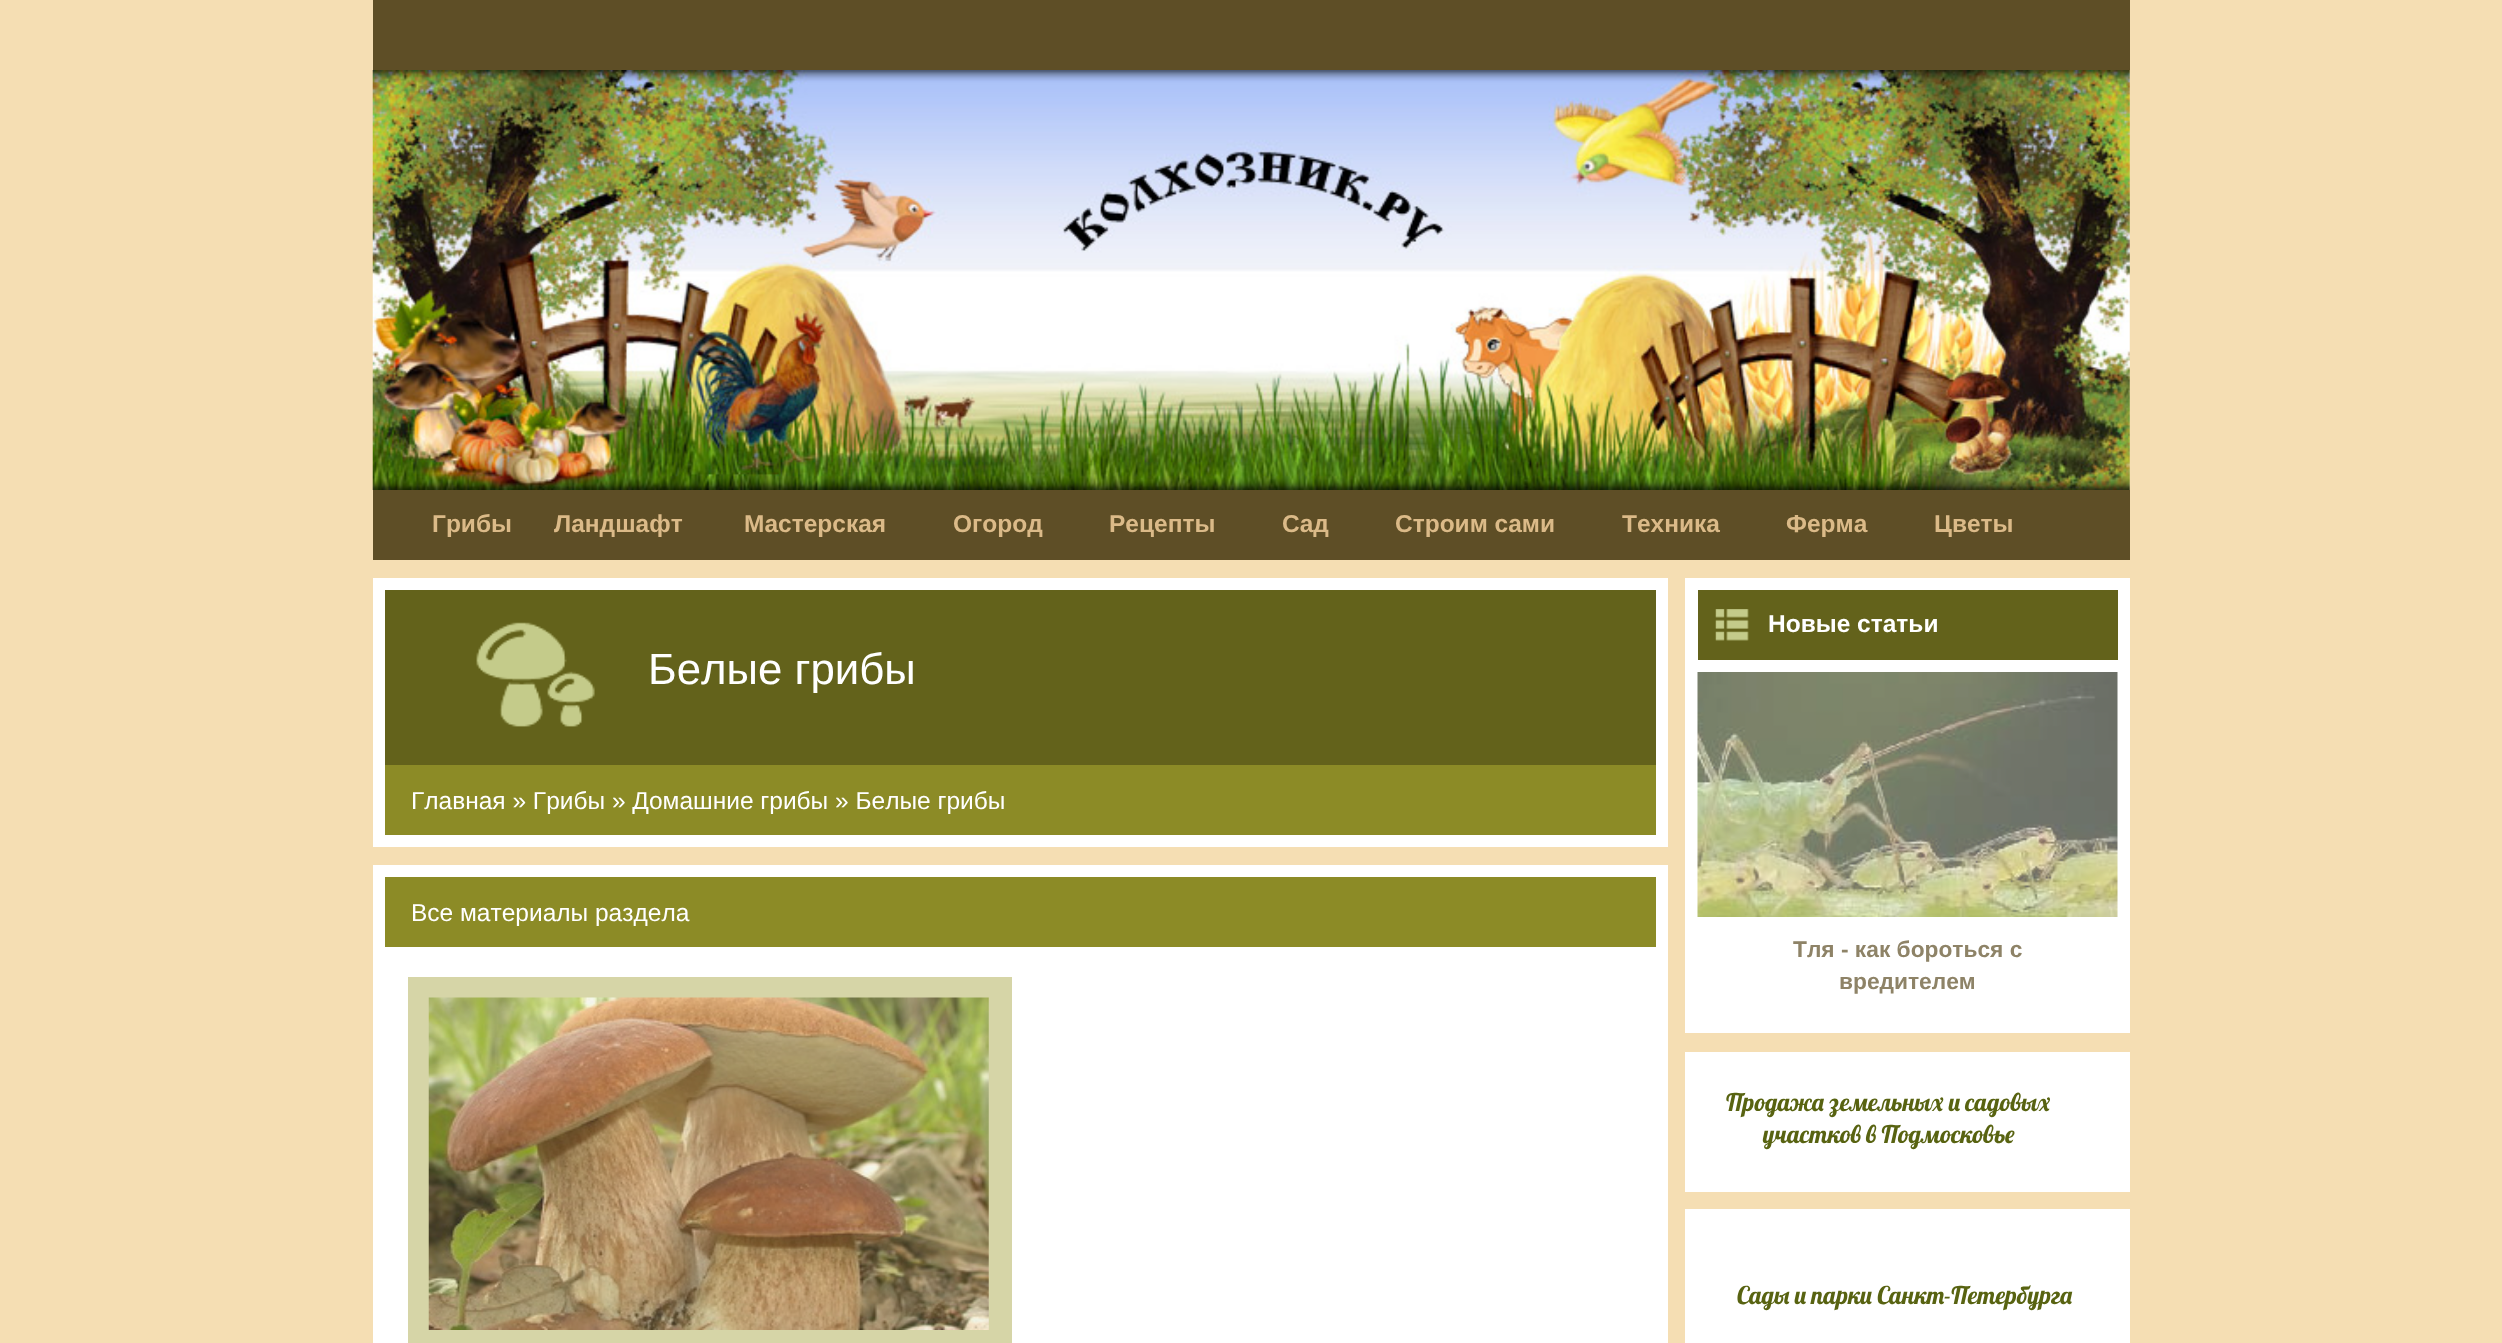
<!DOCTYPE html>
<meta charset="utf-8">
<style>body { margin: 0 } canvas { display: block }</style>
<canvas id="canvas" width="2502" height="1343"></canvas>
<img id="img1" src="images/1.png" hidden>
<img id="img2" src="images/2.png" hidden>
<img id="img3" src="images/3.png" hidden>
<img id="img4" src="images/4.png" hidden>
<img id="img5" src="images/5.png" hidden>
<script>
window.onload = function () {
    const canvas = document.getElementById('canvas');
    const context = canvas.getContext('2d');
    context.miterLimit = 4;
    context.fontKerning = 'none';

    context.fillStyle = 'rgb(245, 222, 179)';
    context.fillRect(0, 0, 2502, 1343);
    context.fillStyle = 'rgb(94, 78, 38)';
    context.fillRect(373, 0, 1757, 70);
    context.drawImage(document.getElementById('img1'), 372, 70, 1758, 420);
    context.fillRect(373, 490, 1757, 70);
    context.fillStyle = 'rgb(255, 255, 255)';
    context.fillRect(373, 578, 1295, 269);
    context.fillStyle = 'rgb(99, 98, 27)';
    context.fillRect(385, 590, 1271, 175);
    context.drawImage(document.getElementById('img2'), 476, 622, 119, 105);
    context.fillStyle = 'rgb(140, 139, 38)';
    context.fillRect(385, 765, 1271, 70);
    context.fillStyle = 'rgb(255, 255, 255)';
    context.fillRect(373, 865, 1295, 478);
    context.fillStyle = 'rgb(140, 139, 38)';
    context.fillRect(385, 877, 1271, 70);
    context.fillStyle = 'rgb(214, 213, 167)';
    context.fillRect(408, 977, 604, 366);
    context.drawImage(document.getElementById('img3'), 428, 997, 561, 333);
    context.fillStyle = 'rgb(255, 255, 255)';
    context.fillRect(1685, 578, 445, 455);
    context.fillStyle = 'rgb(99, 98, 27)';
    context.fillRect(1698, 590, 420, 70);
    context.drawImage(document.getElementById('img4'), 1715, 609, 34, 32);
    context.drawImage(document.getElementById('img5'), 1697, 672, 421, 245);
    context.fillStyle = 'rgb(255, 255, 255)';
    context.fillRect(1685, 1052, 445, 140);
    context.fillRect(1685, 1209, 445, 134);
    context.font = 'bold 24.5px Liberation Sans';
    context.fillStyle = 'rgb(219, 186, 136)';
    context.fillText('Грибы', 432, 532);
    context.fillText('Ландшафт', 554, 532);
    context.fillText('Мастерская', 744, 532);
    context.fillText('Огород', 953, 532);
    context.fillText('Рецепты', 1109, 532);
    context.fillText('Сад', 1282, 532);
    context.fillText('Строим сами', 1395, 532);
    context.fillText('Техника', 1622, 532);
    context.fillText('Ферма', 1786, 532);
    context.fillText('Цветы', 1934, 532);
    context.font = '43.75px Liberation Sans';
    context.fillStyle = 'rgb(255, 255, 255)';
    context.fillText('Белые грибы', 648, 684);
    context.font = '24.5px Liberation Sans';
    context.fillText('Главная » Грибы » Домашние грибы » Белые грибы', 411, 809);
    context.fillText('Все материалы раздела', 411, 921);
    context.font = 'bold 24.5px Liberation Sans';
    context.fillText('Новые статьи', 1768, 632);
    context.font = 'bold 22.75px Liberation Sans';
    context.fillStyle = 'rgb(142, 131, 103)';
    context.fillText('Тля - как бороться с', 1793, 957);
    context.fillText('вредителем', 1839, 989);
    context.font = '24.5px Lobster';
    context.fillStyle = 'rgb(88, 99, 17)';
    context.fillText('Продажа земельных и садовых', 1726, 1111);
    context.fillText('участков в Подмосковье', 1763, 1143);
    context.fillText('Сады и парки Санкт-Петербурга', 1737, 1304);
};
</script>
